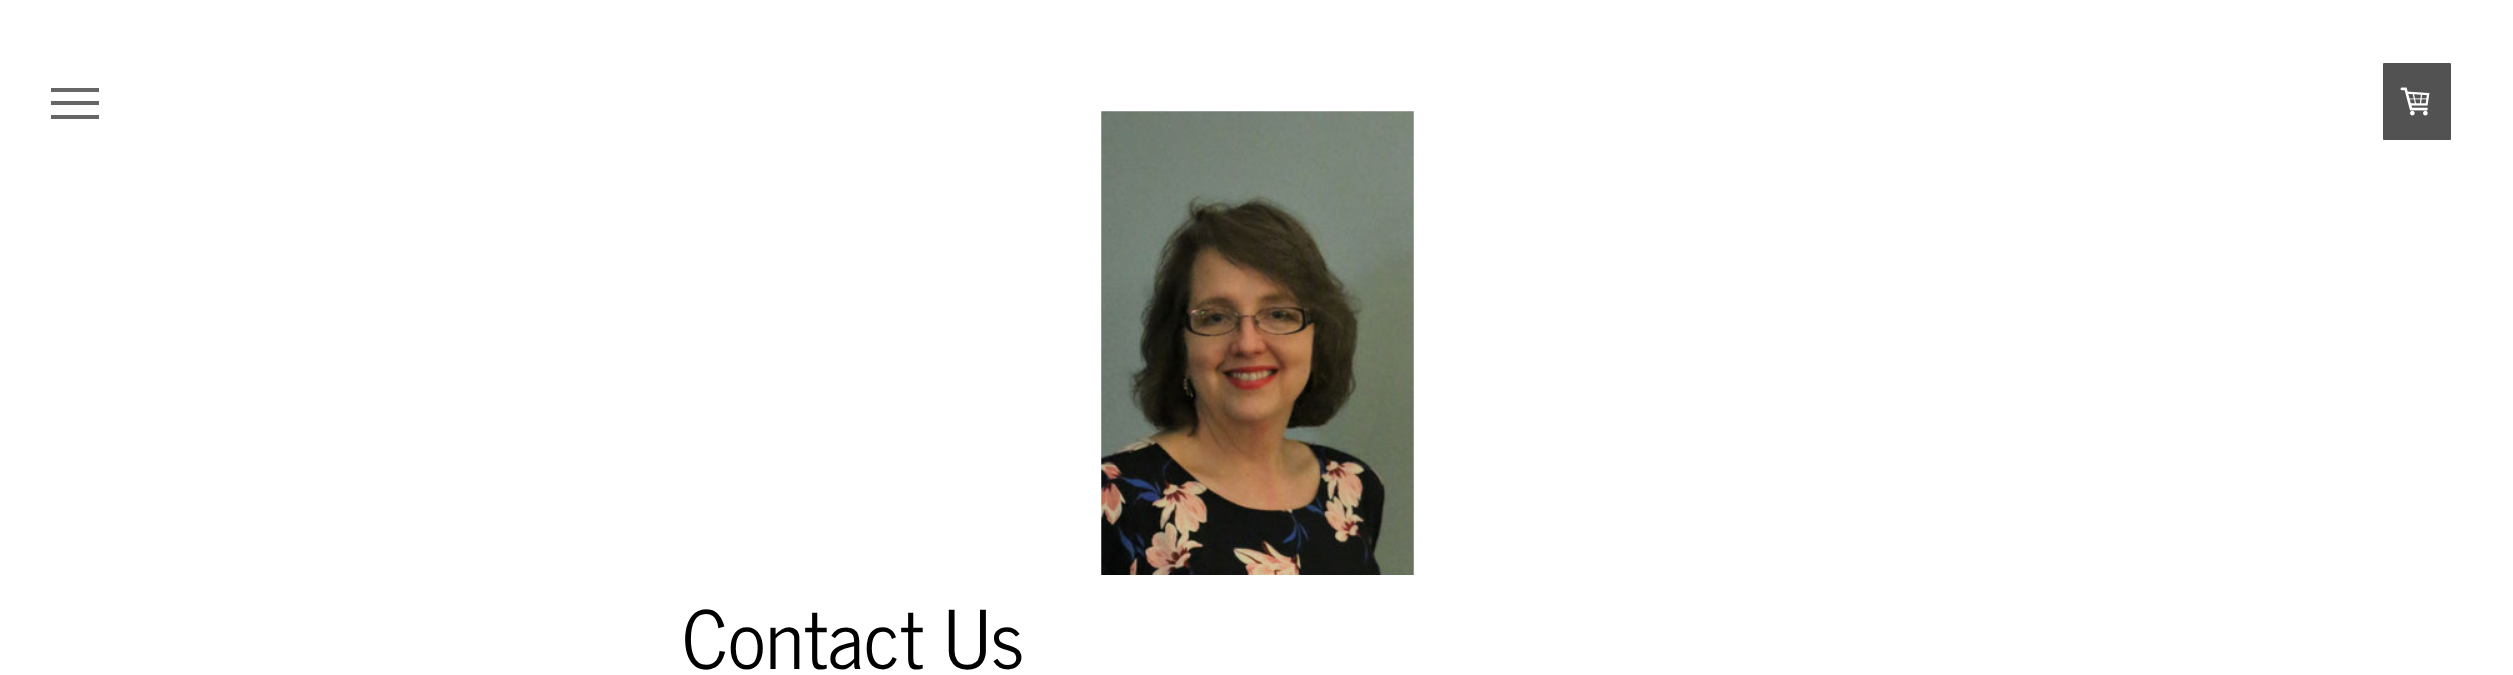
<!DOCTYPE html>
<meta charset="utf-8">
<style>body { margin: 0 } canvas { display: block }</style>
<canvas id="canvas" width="2513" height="675"></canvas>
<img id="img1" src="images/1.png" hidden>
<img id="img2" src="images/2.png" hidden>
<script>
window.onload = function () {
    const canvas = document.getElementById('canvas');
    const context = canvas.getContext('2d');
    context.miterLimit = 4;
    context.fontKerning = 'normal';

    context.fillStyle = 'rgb(255, 255, 255)';
    context.fillRect(0, 0, 2513, 675);
    context.fillStyle = 'rgb(82, 82, 82)';
    context.beginPath();
    context.roundRect(2383, 63, 68, 77, 1);
    context.fill();
    context.drawImage(document.getElementById('img1'), 2400, 87, 30, 29);
    context.fillStyle = 'rgb(102, 102, 102)';
    context.fillRect(51, 101, 48, 4);
    context.fillRect(51, 88, 48, 4);
    context.fillRect(51, 115, 48, 4);
    context.drawImage(document.getElementById('img2'), 1101, 111, 313, 464);
    context.font = '80px News Cycle';
    context.fillStyle = 'rgb(0, 0, 0)';
    context.fillText('Contact Us', 682, 669);
};
</script>
